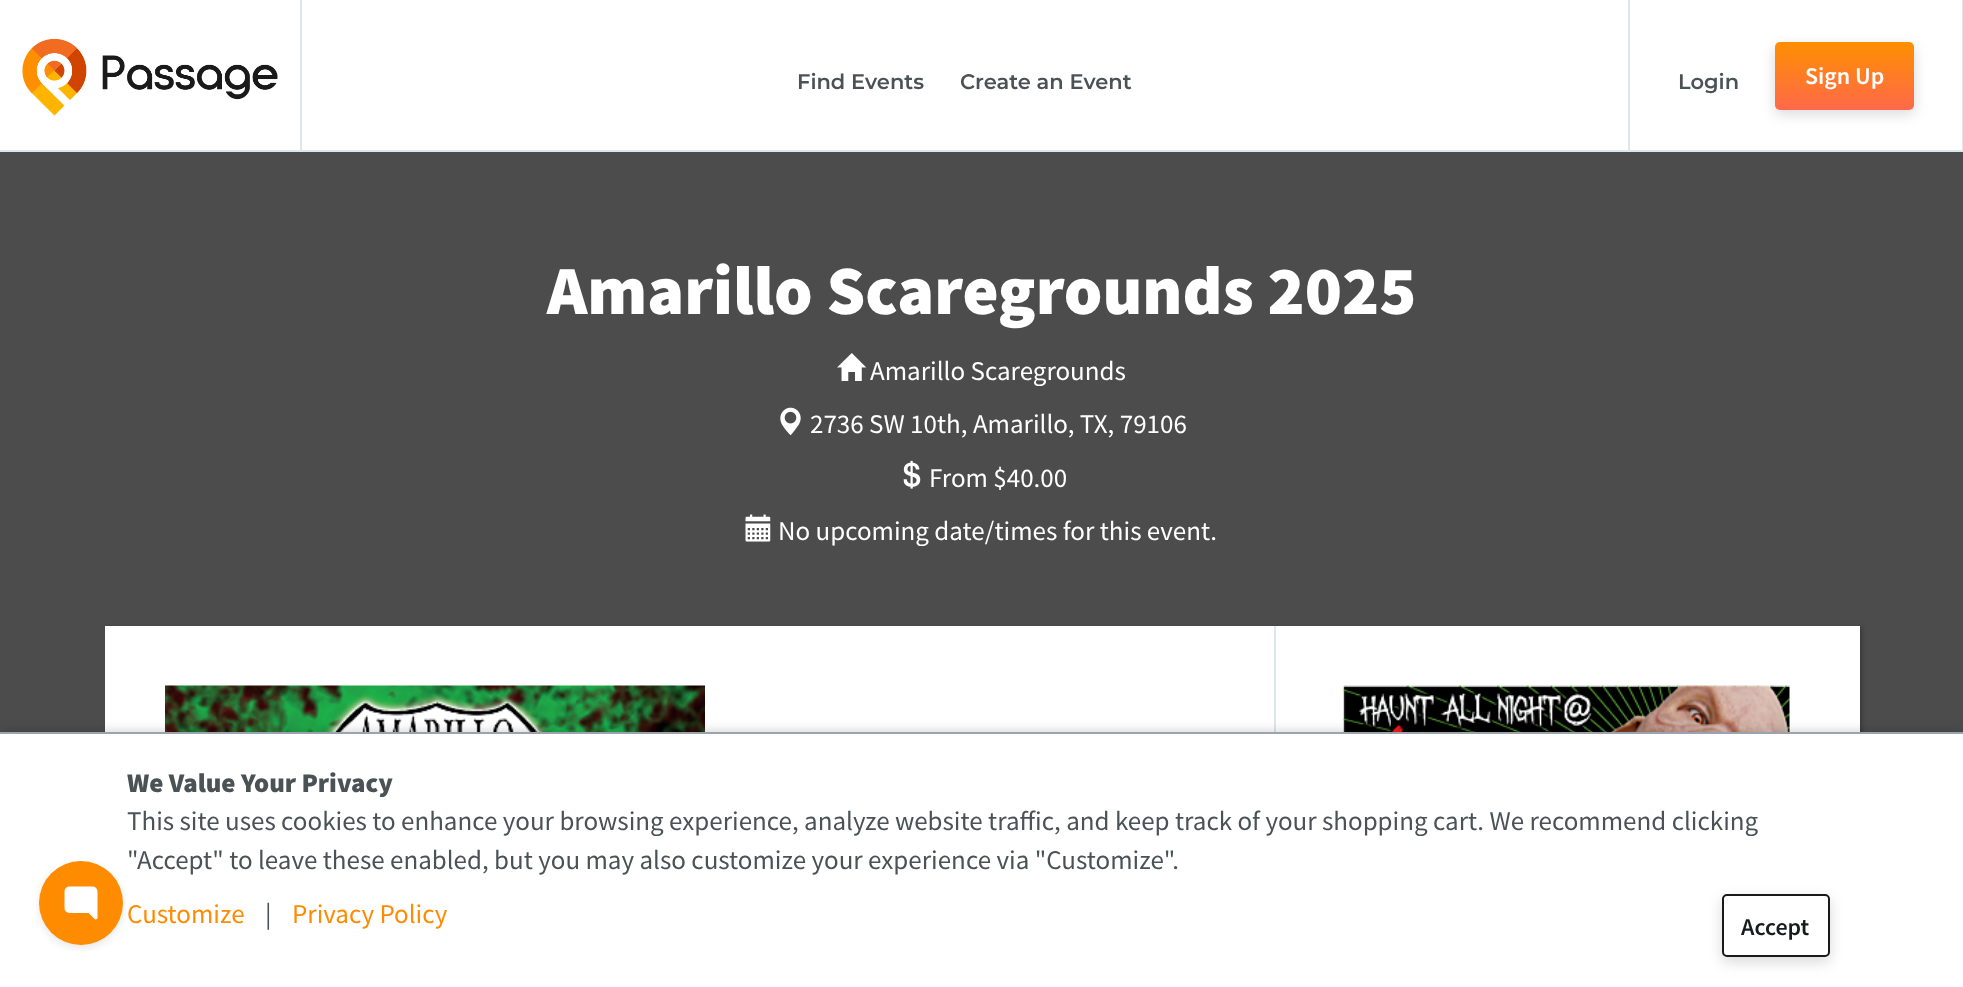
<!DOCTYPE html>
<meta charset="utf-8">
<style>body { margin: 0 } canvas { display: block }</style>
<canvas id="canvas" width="1963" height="987"></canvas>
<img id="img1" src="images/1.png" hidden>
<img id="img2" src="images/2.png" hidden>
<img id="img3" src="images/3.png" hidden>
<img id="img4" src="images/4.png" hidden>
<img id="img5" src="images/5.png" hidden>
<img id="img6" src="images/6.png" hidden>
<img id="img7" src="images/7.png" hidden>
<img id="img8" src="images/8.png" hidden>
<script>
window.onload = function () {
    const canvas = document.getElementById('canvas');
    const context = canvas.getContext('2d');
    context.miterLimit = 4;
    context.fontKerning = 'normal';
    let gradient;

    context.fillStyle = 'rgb(76, 76, 76)';
    context.fillRect(0, 0, 1963, 987);
    context.fillStyle = 'rgb(255, 255, 255)';
    context.fillRect(0, 0, 1962, 150);
    context.fillStyle = 'rgb(218, 231, 236)';
    context.fillRect(0, 150, 1963, 2);
    context.fillRect(300, 0, 2, 150);
    context.drawImage(document.getElementById('img1'), 22, 39, 256, 77);
    context.fillRect(1962, 0, 1, 150);
    context.fillRect(1628, 0, 2, 150);
    context.fillStyle = 'rgba(0, 0, 0, 0.15)';
    context.filter = 'blur(7px)';
    context.beginPath();
    context.roundRect(1775, 47, 139, 67, 5);
    context.fill();
    context.filter = 'none';
    gradient = context.createLinearGradient(1844, 42, 1844, 110);
    gradient.addColorStop(0, 'rgb(254, 143, 0)');
    gradient.addColorStop(1, 'rgb(255, 105, 74)');
    context.fillStyle = gradient;
    context.beginPath();
    context.roundRect(1775, 42, 139, 68, 5);
    context.fill();
    context.drawImage(document.getElementById('img2'), 837, 353, 30, 28);
    context.drawImage(document.getElementById('img3'), 780, 407, 21, 29);
    context.drawImage(document.getElementById('img4'), 903, 460, 18, 29);
    context.drawImage(document.getElementById('img5'), 745, 514, 26, 28);
    context.fillStyle = 'rgba(0, 0, 0, 0.25)';
    context.filter = 'blur(2px)';
    context.beginPath();
    context.rect(107, 627, 1755, 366);
    context.fill();
    context.filter = 'none';
    context.fillStyle = 'rgb(255, 255, 255)';
    context.fillRect(105, 626, 1755, 106);
    context.fillStyle = 'rgb(218, 231, 236)';
    context.fillRect(1274, 626, 2, 106);
    context.drawImage(document.getElementById('img6'), 165, 685, 540, 47);
    context.drawImage(document.getElementById('img7'), 1342, 685, 448, 47);
    context.fillStyle = 'rgba(0, 0, 0, 0.2)';
    context.filter = 'blur(6px)';
    context.beginPath();
    context.rect(0, 732, 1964, 255);
    context.fill();
    context.filter = 'none';
    context.fillStyle = 'rgb(255, 255, 255)';
    context.fillRect(0, 734, 1963, 253);
    context.drawImage(document.getElementById('img8'), 36, 861, 90, 90);
    context.fillStyle = 'rgb(156, 163, 175)';
    context.fillRect(0, 732, 1963, 2);
    context.fillStyle = 'rgba(0, 0, 0, 0.15)';
    context.filter = 'blur(7px)';
    context.beginPath();
    context.roundRect(1722, 899, 108, 63, 5);
    context.fill();
    context.filter = 'none';
    context.fillStyle = 'rgb(255, 255, 255)';
    context.beginPath();
    context.roundRect(1723, 895, 106, 61, 4);
    context.fill();
    context.strokeStyle = 'rgb(24, 26, 27)';
    context.lineWidth = 2;
    context.stroke();
    context.font = '600 21px Montserrat';
    context.fillStyle = 'rgb(75, 82, 85)';
    context.fillText('Find Events', 797, 89);
    context.fillText('Create an Event', 960, 89);
    context.fillText('Login', 1678, 89);
    context.font = '600 24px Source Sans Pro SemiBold';
    context.fillStyle = 'rgb(255, 255, 255)';
    context.fillText('Sign Up', 1805, 84);
    context.font = '900 69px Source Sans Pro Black';
    context.fillText('Amarillo Scaregrounds 2025', 547, 314);
    context.font = '27px Source Sans Pro';
    context.fillText('Amarillo Scaregrounds', 870, 380);
    context.fillText('2736 SW 10th, Amarillo, TX, 79106', 810, 433);
    context.fillText('From $40.00', 929, 487);
    context.fillText('No upcoming date/times for this event.', 778, 540);
    context.font = '900 27px Source Sans Pro Black';
    context.fillStyle = 'rgb(75, 82, 85)';
    context.fillText('We Value Your Privacy', 127, 792);
    context.font = '27px Source Sans Pro';
    context.fillText('This site uses cookies to enhance your browsing experience, analyze website traffic, and keep track of your shopping cart. We recommend clicking', 127, 830);
    context.fillText('"Accept" to leave these enabled, but you may also customize your experience via "Customize".', 127, 869);
    context.fillStyle = 'rgb(254, 139, 0)';
    context.fillText('Customize', 127, 923);
    context.fillStyle = 'rgb(75, 82, 85)';
    context.fillText('|', 265, 923);
    context.fillStyle = 'rgb(254, 139, 0)';
    context.fillText('Privacy Policy', 292, 923);
    context.font = '600 24px Source Sans Pro SemiBold';
    context.fillStyle = 'rgb(24, 26, 27)';
    context.fillText('Accept', 1741, 935);
};
</script>
